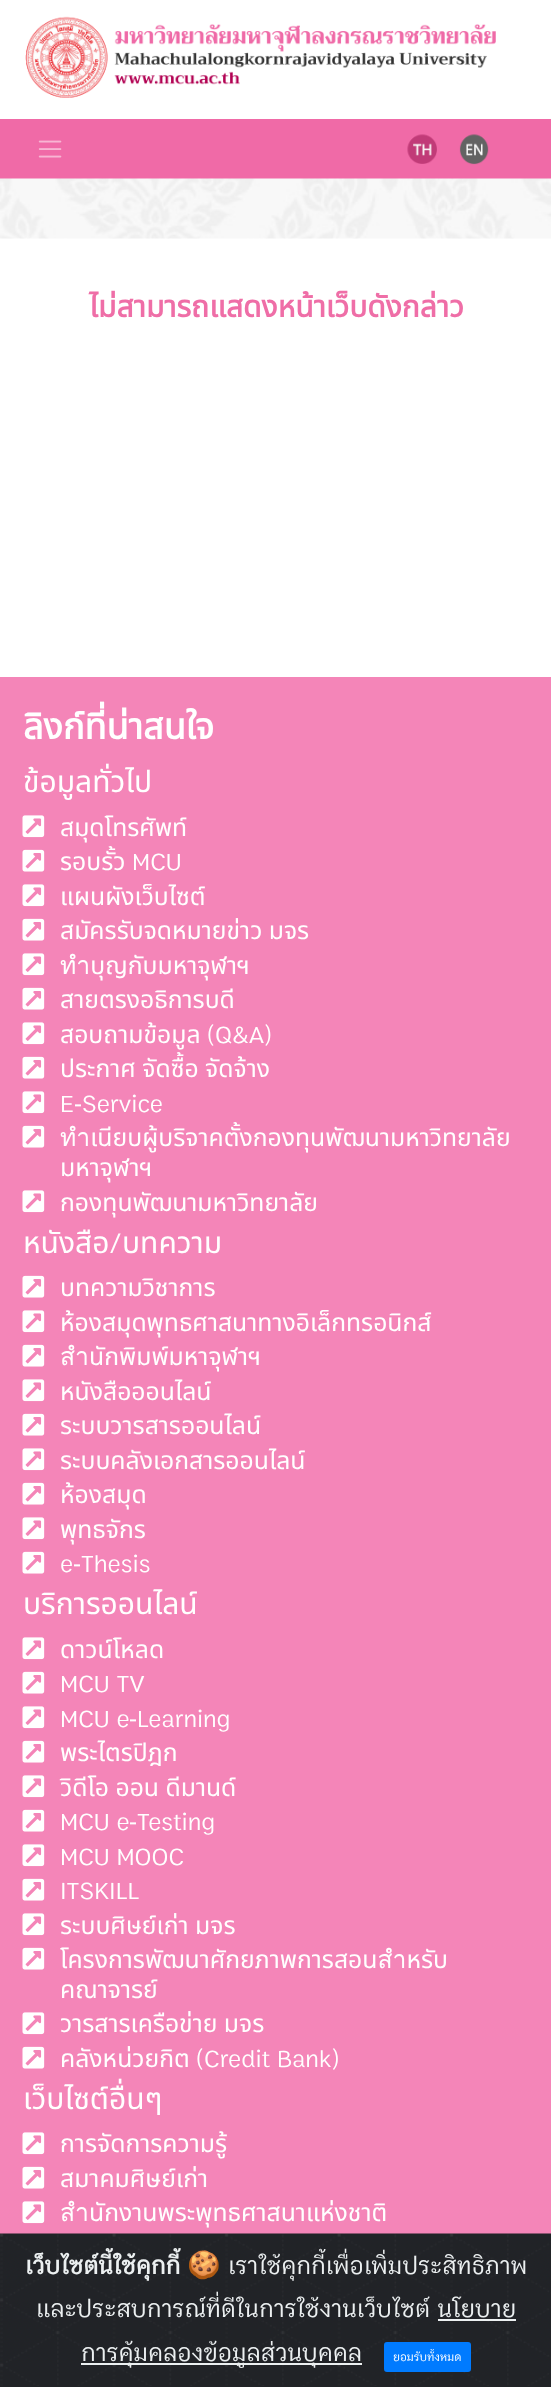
<!DOCTYPE html>
<meta charset="utf-8">
<style>body { margin: 0 } canvas { display: block }</style>
<canvas id="canvas" width="551" height="2387"></canvas>
<img id="img1" src="images/1.png" hidden>
<img id="img2" src="images/2.png" hidden>
<img id="img3" src="images/3.png" hidden>
<img id="img4" src="images/4.png" hidden>
<img id="img5" src="images/5.png" hidden>
<img id="img6" src="images/6.png" hidden>
<img id="img7" src="images/7.png" hidden>
<img id="img8" src="images/8.png" hidden>
<script>
window.onload = function () {
    const canvas = document.getElementById('canvas');
    const context = canvas.getContext('2d');
    context.miterLimit = 4;
    context.fontKerning = 'normal';

    context.fillStyle = 'rgb(255, 255, 255)';
    context.fillRect(0, 0, 551, 2387);
    context.drawImage(document.getElementById('img1'), 25, 16, 471, 82);
    context.fillStyle = 'rgb(240, 106, 167)';
    context.fillRect(0, 119, 551, 60);
    context.drawImage(document.getElementById('img2'), 38, 140, 24, 18);
    context.drawImage(document.getElementById('img3'), 407, 134, 30, 30);
    context.drawImage(document.getElementById('img4'), 459, 134, 30, 31);
    context.drawImage(document.getElementById('img5'), 0, 178, 551, 61);
    context.fillStyle = 'rgb(244, 133, 184)';
    context.fillRect(0, 677, 551, 1557);
    context.drawImage(document.getElementById('img6'), 22, 815, 23, 23);
    context.drawImage(document.getElementById('img7'), 22, 849, 23, 23);
    context.drawImage(document.getElementById('img6'), 22, 884, 23, 23);
    context.drawImage(document.getElementById('img7'), 22, 918, 23, 23);
    context.drawImage(document.getElementById('img6'), 22, 953, 23, 23);
    context.drawImage(document.getElementById('img7'), 22, 987, 23, 23);
    context.drawImage(document.getElementById('img6'), 22, 1022, 23, 23);
    context.drawImage(document.getElementById('img7'), 22, 1056, 23, 23);
    context.drawImage(document.getElementById('img6'), 22, 1091, 23, 23);
    context.drawImage(document.getElementById('img7'), 22, 1125, 23, 23);
    context.drawImage(document.getElementById('img6'), 22, 1190, 23, 23);
    context.drawImage(document.getElementById('img7'), 22, 1275, 23, 23);
    context.drawImage(document.getElementById('img6'), 22, 1310, 23, 23);
    context.drawImage(document.getElementById('img7'), 22, 1344, 23, 23);
    context.drawImage(document.getElementById('img6'), 22, 1379, 23, 23);
    context.drawImage(document.getElementById('img7'), 22, 1413, 23, 23);
    context.drawImage(document.getElementById('img6'), 22, 1448, 23, 23);
    context.drawImage(document.getElementById('img7'), 22, 1482, 23, 23);
    context.drawImage(document.getElementById('img6'), 22, 1517, 23, 23);
    context.drawImage(document.getElementById('img7'), 22, 1551, 23, 23);
    context.drawImage(document.getElementById('img6'), 22, 1637, 23, 23);
    context.drawImage(document.getElementById('img7'), 22, 1671, 23, 23);
    context.drawImage(document.getElementById('img6'), 22, 1706, 23, 23);
    context.drawImage(document.getElementById('img7'), 22, 1740, 23, 23);
    context.drawImage(document.getElementById('img6'), 22, 1775, 23, 23);
    context.drawImage(document.getElementById('img7'), 22, 1809, 23, 23);
    context.drawImage(document.getElementById('img6'), 22, 1844, 23, 23);
    context.drawImage(document.getElementById('img7'), 22, 1878, 23, 23);
    context.drawImage(document.getElementById('img6'), 22, 1913, 23, 23);
    context.drawImage(document.getElementById('img7'), 22, 1947, 23, 23);
    context.drawImage(document.getElementById('img6'), 22, 2012, 23, 23);
    context.drawImage(document.getElementById('img7'), 22, 2046, 23, 23);
    context.drawImage(document.getElementById('img6'), 22, 2132, 23, 23);
    context.drawImage(document.getElementById('img7'), 22, 2166, 23, 23);
    context.drawImage(document.getElementById('img6'), 22, 2201, 23, 23);
    context.fillStyle = 'rgb(33, 35, 39)';
    context.fillRect(0, 2386, 551, 1);
    context.drawImage(document.getElementById('img8'), 0, 2233, 551, 153);
    context.fillStyle = 'rgb(236, 240, 241)';
    context.fillRect(438, 2319, 78, 2);
    context.fillRect(81, 2363, 281, 2);
    context.fillStyle = 'rgb(0, 123, 255)';
    context.beginPath();
    context.roundRect(385, 2343, 85, 28, 2);
    context.fill();
    context.strokeStyle = 'rgb(0, 123, 255)';
    context.lineWidth = 2;
    context.stroke();
    context.font = 'bold 30px Noto Sans Thai';
    context.fillStyle = 'rgb(239, 110, 167)';
    context.fillText('ไม่สามารถแสดงหน้าเว็บดังกล่าว', 89, 317);
    context.font = 'bold 36px Noto Sans Thai';
    context.fillStyle = 'rgb(255, 255, 255)';
    context.fillText('ลิงก์ที่น่าสนใจ', 23, 739);
    context.font = '30px Noto Sans Thai';
    context.fillText('ข้อมูลทั่วไป', 23, 792);
    context.font = '24.75px Noto Sans Thai';
    context.fillText('สมุดโทรศัพท์', 60, 836);
    context.fillText('รอบรั้ว', 60, 870);
    context.font = '24.75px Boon';
    context.fillText('MCU', 132, 870);
    context.font = '24.75px Noto Sans Thai';
    context.fillText('แผนผังเว็บไซต์', 60, 905);
    context.fillText('สมัครรับจดหมายข่าว มจร', 60, 939);
    context.fillText('ทำบุญกับมหาจุฬาฯ', 60, 974);
    context.fillText('สายตรงอธิการบดี', 60, 1008);
    context.fillText('สอบถามข้อมูล', 60, 1043);
    context.font = '24.75px Boon';
    context.fillText('(Q&A)', 207, 1043);
    context.font = '24.75px Noto Sans Thai';
    context.fillText('ประกาศ จัดซื้อ จัดจ้าง', 60, 1077);
    context.font = '24.75px Boon';
    context.fillText('E', 60, 1112);
    context.font = '24.75px Noto Sans Thai';
    context.fillText('-', 74, 1112);
    context.font = '24.75px Boon';
    context.fillText('Service', 82, 1112);
    context.font = '24.75px Noto Sans Thai';
    context.fillText('ทำเนียบผู้บริจาคตั้งกองทุนพัฒนามหาวิทยาลัย', 60, 1146);
    context.fillText('มหาจุฬาฯ', 60, 1176);
    context.fillText('กองทุนพัฒนามหาวิทยาลัย', 60, 1211);
    context.font = '30px Noto Sans Thai';
    context.fillText('หนังสือ', 23, 1253);
    context.font = '30px Boon';
    context.fillText('/', 109, 1253);
    context.font = '30px Noto Sans Thai';
    context.fillText('บทความ', 122, 1253);
    context.font = '24.75px Noto Sans Thai';
    context.fillText('บทความวิชาการ', 60, 1296);
    context.fillText('ห้องสมุดพุทธศาสนาทางอิเล็กทรอนิกส์', 60, 1331);
    context.fillText('สำนักพิมพ์มหาจุฬาฯ', 60, 1365);
    context.fillText('หนังสือออนไลน์', 60, 1400);
    context.fillText('ระบบวารสารออนไลน์', 60, 1434);
    context.fillText('ระบบคลังเอกสารออนไลน์', 60, 1469);
    context.fillText('ห้องสมุด', 60, 1503);
    context.fillText('พุทธจักร', 60, 1538);
    context.font = '24.75px Boon';
    context.fillText('e', 60, 1572);
    context.font = '24.75px Noto Sans Thai';
    context.fillText('-', 73, 1572);
    context.font = '24.75px Boon';
    context.fillText('Thesis', 81, 1572);
    context.font = '30px Noto Sans Thai';
    context.fillText('บริการออนไลน์', 23, 1614);
    context.font = '24.75px Noto Sans Thai';
    context.fillText('ดาวน์โหลด', 60, 1658);
    context.font = '24.75px Boon';
    context.fillText('MCU TV', 60, 1692);
    context.fillText('MCU e', 60, 1727);
    context.font = '24.75px Noto Sans Thai';
    context.fillText('-', 129, 1727);
    context.font = '24.75px Boon';
    context.fillText('Learning', 137, 1727);
    context.font = '24.75px Noto Sans Thai';
    context.fillText('พระไตรปิฎก', 60, 1761);
    context.fillText('วิดีโอ ออน ดีมานด์', 60, 1796);
    context.font = '24.75px Boon';
    context.fillText('MCU e', 60, 1830);
    context.font = '24.75px Noto Sans Thai';
    context.fillText('-', 129, 1830);
    context.font = '24.75px Boon';
    context.fillText('Testing', 137, 1830);
    context.fillText('MCU MOOC', 60, 1865);
    context.fillText('ITSKILL', 60, 1899);
    context.font = '24.75px Noto Sans Thai';
    context.fillText('ระบบศิษย์เก่า มจร', 60, 1934);
    context.fillText('โครงการพัฒนาศักยภาพการสอนสำหรับ', 60, 1968);
    context.fillText('คณาจารย์', 60, 1998);
    context.fillText('วารสารเครือข่าย มจร', 60, 2032);
    context.fillText('คลังหน่วยกิต', 60, 2067);
    context.font = '24.75px Boon';
    context.fillText('(Credit Bank)', 196, 2067);
    context.font = '30px Noto Sans Thai';
    context.fillText('เว็บไซต์อื่นๆ', 23, 2109);
    context.font = '24.75px Noto Sans Thai';
    context.fillText('การจัดการความรู้', 60, 2152);
    context.fillText('สมาคมศิษย์เก่า', 60, 2187);
    context.fillText('สำนักงานพระพุทธศาสนาแห่งชาติ', 60, 2221);
    context.font = 'bold 27px Boon';
    context.fillStyle = 'rgb(236, 240, 241)';
    context.fillText('เว็บไซต์นี้ใช้คุกกี้', 25, 2274);
    context.font = '27px Noto Color Emoji';
    context.fillText('🍪', 187, 2274);
    context.font = '27px Boon';
    context.fillText('เราใช้คุกกี้เพื่อเพิ่มประสิทธิภาพ', 228, 2274);
    context.fillText('และประสบการณ์ที่ดีในการใช้งานเว็บไซต์ นโยบาย', 36, 2317);
    context.fillText('การคุ้มคลองข้อมูลส่วนบุคคล', 81, 2361);
    context.font = '13px Boon';
    context.fillStyle = 'rgb(255, 255, 255)';
    context.fillText('ยอมรับทั้งหมด', 393, 2361);
};
</script>
